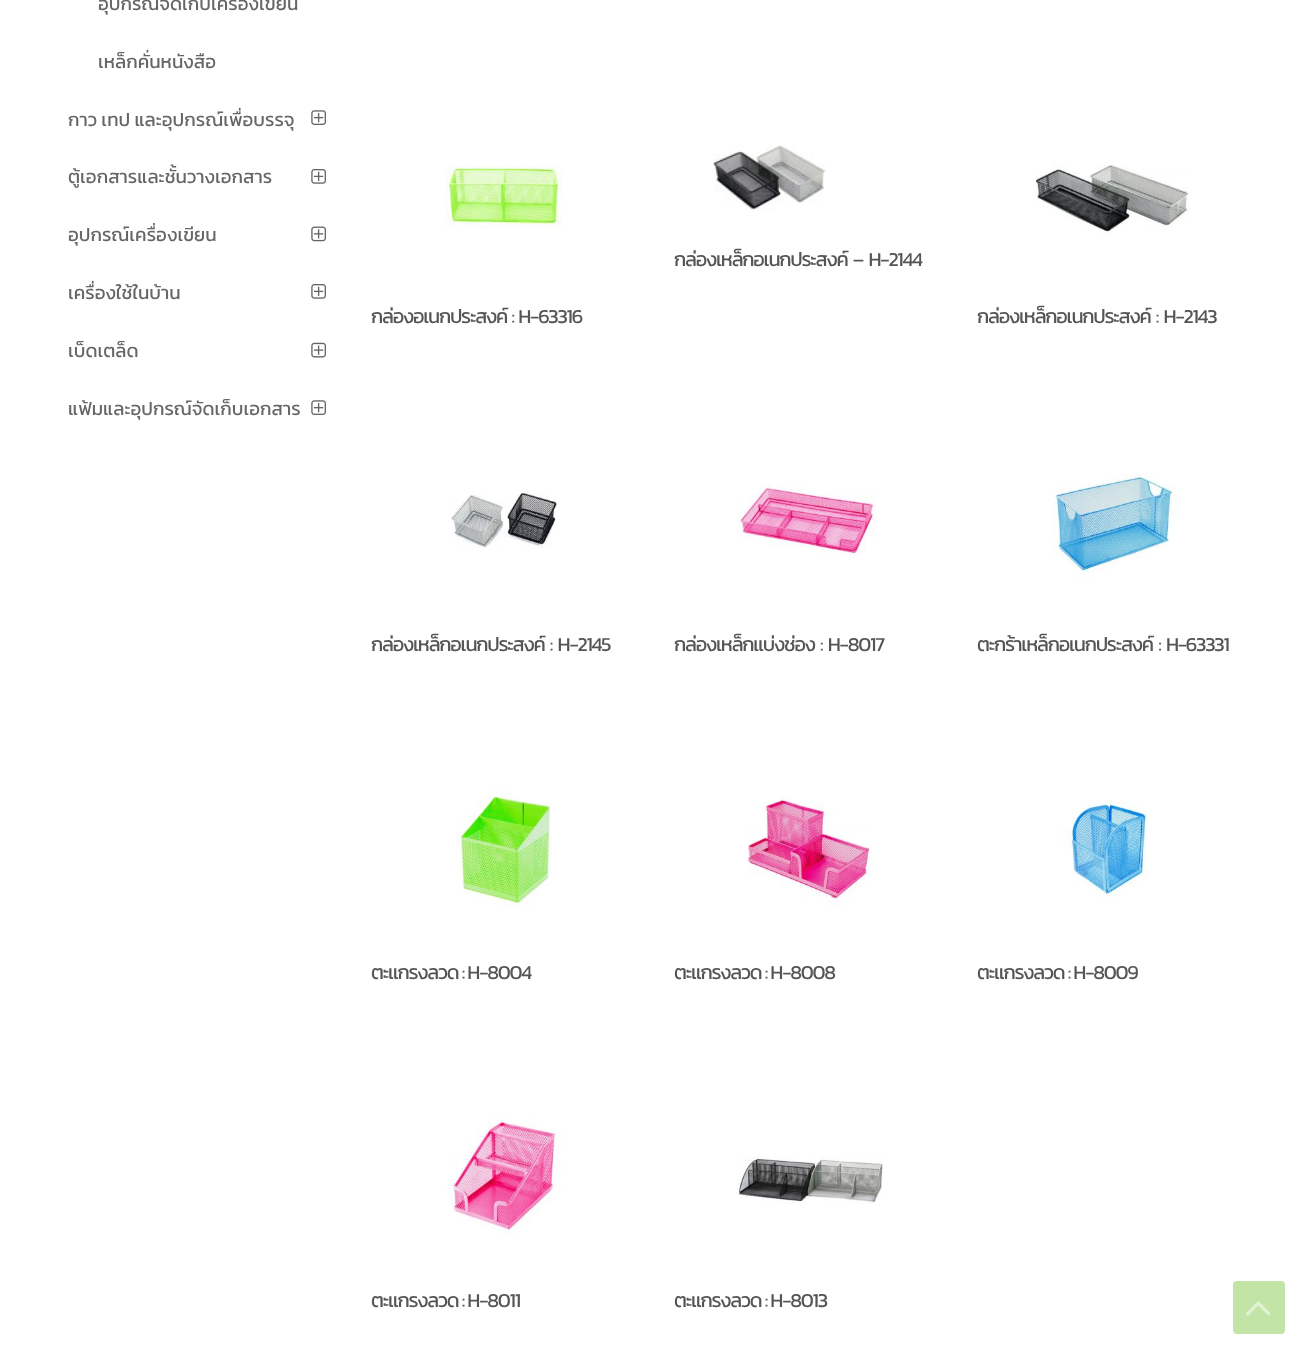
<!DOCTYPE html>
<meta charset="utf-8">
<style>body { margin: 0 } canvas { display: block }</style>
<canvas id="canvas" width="1309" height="1358"></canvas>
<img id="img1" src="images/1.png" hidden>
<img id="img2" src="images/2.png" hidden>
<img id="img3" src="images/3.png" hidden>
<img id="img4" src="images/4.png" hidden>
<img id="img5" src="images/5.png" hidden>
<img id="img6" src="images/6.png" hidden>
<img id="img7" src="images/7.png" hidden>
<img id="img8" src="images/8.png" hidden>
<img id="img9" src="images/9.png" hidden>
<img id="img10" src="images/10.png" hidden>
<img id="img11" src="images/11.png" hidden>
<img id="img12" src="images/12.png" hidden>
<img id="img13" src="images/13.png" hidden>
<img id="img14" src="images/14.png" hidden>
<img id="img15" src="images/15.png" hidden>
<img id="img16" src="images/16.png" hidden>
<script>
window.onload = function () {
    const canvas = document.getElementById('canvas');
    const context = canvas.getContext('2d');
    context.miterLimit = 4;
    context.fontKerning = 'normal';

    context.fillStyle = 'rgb(255, 255, 255)';
    context.fillRect(0, 0, 1309, 1358);
    context.drawImage(document.getElementById('img1'), 311, 110, 15, 15);
    context.drawImage(document.getElementById('img2'), 311, 169, 15, 15);
    context.drawImage(document.getElementById('img3'), 311, 226, 15, 16);
    context.drawImage(document.getElementById('img2'), 311, 284, 15, 15);
    context.drawImage(document.getElementById('img4'), 311, 342, 15, 16);
    context.drawImage(document.getElementById('img1'), 311, 400, 15, 15);
    context.drawImage(document.getElementById('img5'), 713, 145, 113, 66);
    context.drawImage(document.getElementById('img6'), 445, 166, 118, 64);
    context.drawImage(document.getElementById('img7'), 1036, 162, 154, 72);
    context.drawImage(document.getElementById('img8'), 451, 490, 106, 58);
    context.drawImage(document.getElementById('img9'), 737, 484, 139, 75);
    context.drawImage(document.getElementById('img10'), 1052, 473, 127, 107);
    context.drawImage(document.getElementById('img11'), 456, 790, 96, 118);
    context.drawImage(document.getElementById('img12'), 748, 796, 126, 111);
    context.drawImage(document.getElementById('img13'), 1062, 801, 85, 96);
    context.drawImage(document.getElementById('img14'), 447, 1119, 115, 117);
    context.drawImage(document.getElementById('img15'), 738, 1156, 147, 48);
    context.fillStyle = 'rgb(194, 228, 167)';
    context.beginPath();
    context.roundRect(1233, 1281, 52, 53, 4);
    context.fill();
    context.drawImage(document.getElementById('img16'), 1245, 1301, 26, 15);
    context.font = '18.75px Kanit';
    context.fillStyle = 'rgb(102, 102, 102)';
    context.fillText('อุปกรณ์จัดเก็บเครื่องเขียน', 98, 10);
    context.fillText('เหล็กคั่นหนังสือ', 98, 68);
    context.fillText('กาว เทป และอุปกรณ์เพื่อบรรจุ', 68, 126);
    context.fillText('ตู้เอกสารและชั้นวางเอกสาร', 68, 183);
    context.fillText('อุปกรณ์เครื่องเขียน', 68, 241);
    context.fillText('เครื่องใช้ในบ้าน', 68, 299);
    context.fillText('เบ็ดเตล็ด', 68, 357);
    context.fillText('แฟ้มและอุปกรณ์จัดเก็บเอกสาร', 68, 415);
    context.letterSpacing = '-1.25px';
    context.wordSpacing = '2px';
    context.font = '20px Kanit';
    context.fillStyle = 'rgb(85, 85, 85)';
    context.fillText('กล่องเหล็กอเนกประสงค์ – H-2144', 674, 266);
    context.wordSpacing = '1px';
    context.fillText('กล่องอเนกประสงค์ : H-63316', 371, 323);
    context.wordSpacing = '2px';
    context.fillText('กล่องเหล็กอเนกประสงค์ : H-2143', 977, 323);
    context.fillText('กล่องเหล็กอเนกประสงค์ : H-2145', 371, 651);
    context.fillText('กล่องเหล็กแบ่งช่อง : H-8017', 674, 651);
    context.fillText('ตะกร้าเหล็กอเนกประสงค์ : H-63331', 977, 651);
    context.wordSpacing = '0px';
    context.fillText('ตะแกรงลวด : H-8004', 371, 979);
    context.fillText('ตะแกรงลวด : H-8008', 674, 979);
    context.fillText('ตะแกรงลวด : H-8009', 977, 979);
    context.fillText('ตะแกรงลวด : H-8011', 371, 1307);
    context.fillText('ตะแกรงลวด : H-8013', 674, 1307);
};
</script>
